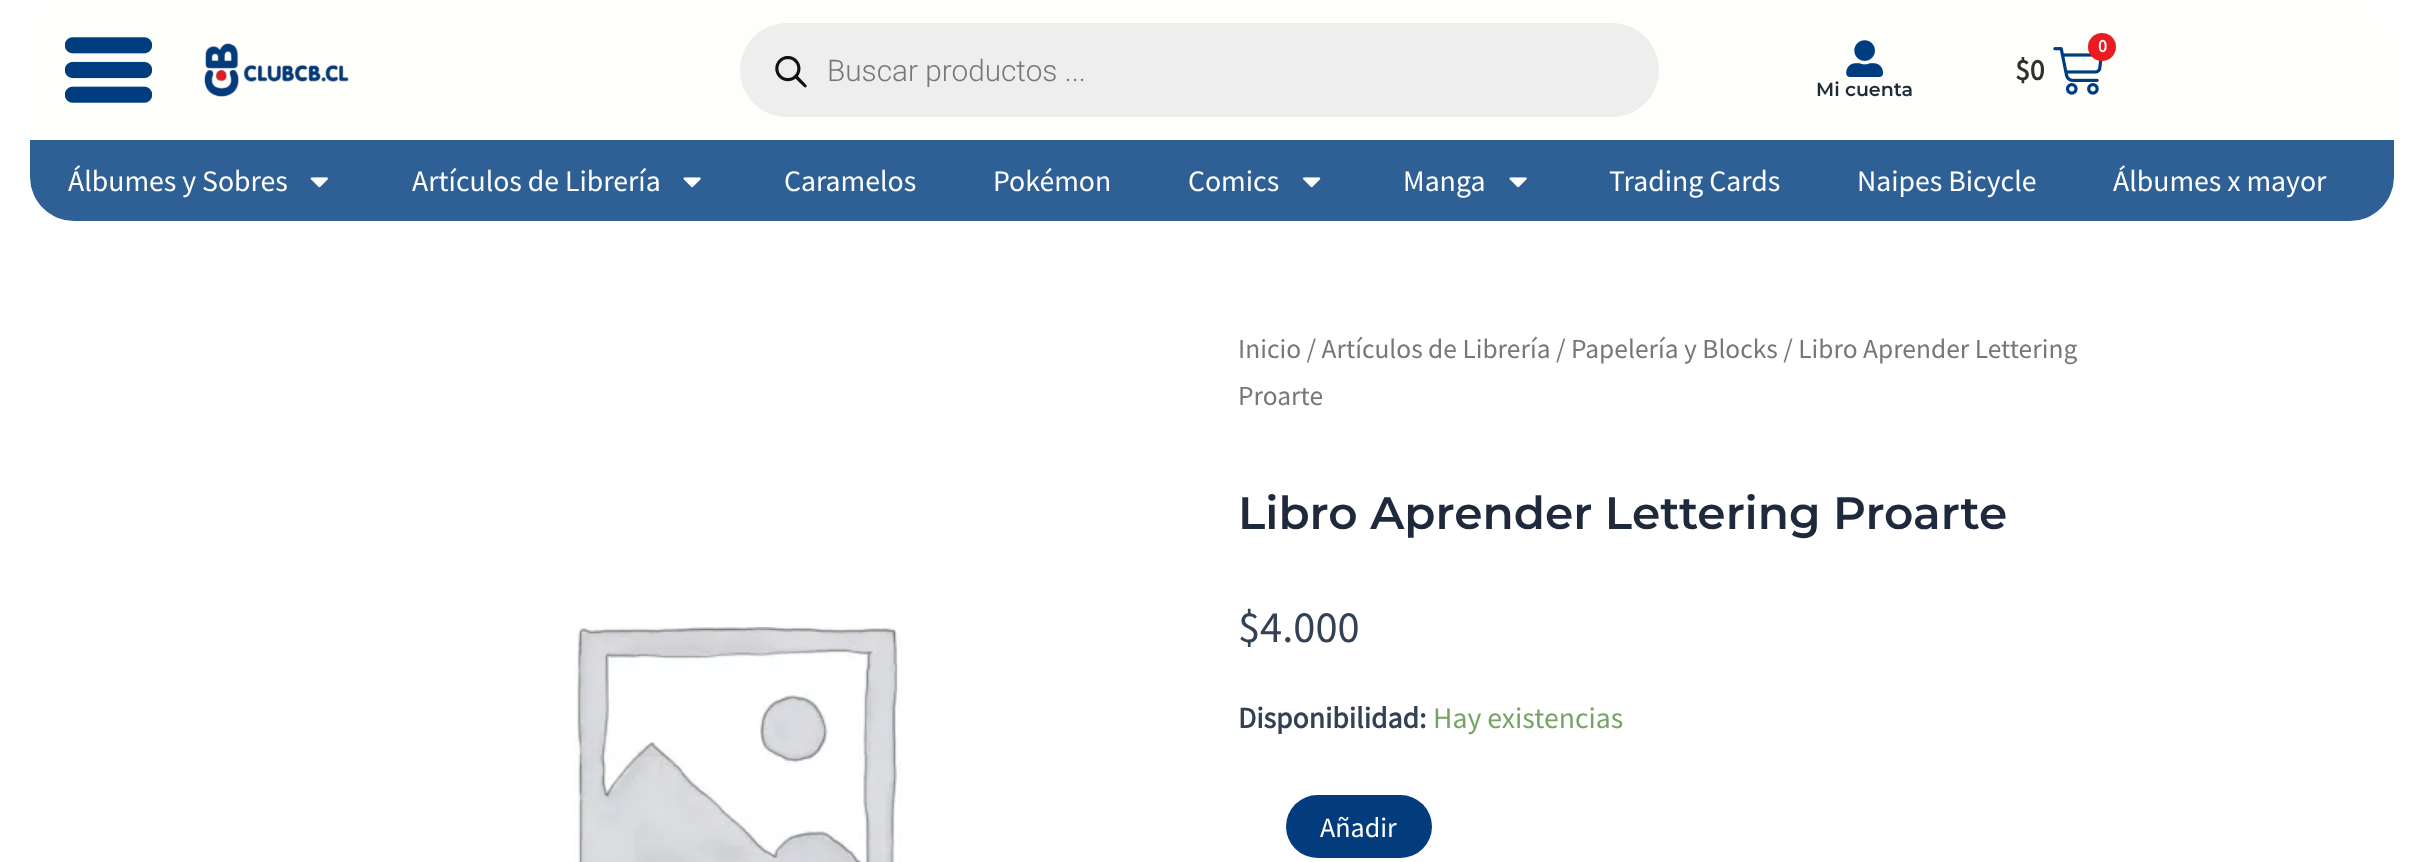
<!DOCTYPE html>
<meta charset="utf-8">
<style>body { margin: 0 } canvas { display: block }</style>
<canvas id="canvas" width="2423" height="862"></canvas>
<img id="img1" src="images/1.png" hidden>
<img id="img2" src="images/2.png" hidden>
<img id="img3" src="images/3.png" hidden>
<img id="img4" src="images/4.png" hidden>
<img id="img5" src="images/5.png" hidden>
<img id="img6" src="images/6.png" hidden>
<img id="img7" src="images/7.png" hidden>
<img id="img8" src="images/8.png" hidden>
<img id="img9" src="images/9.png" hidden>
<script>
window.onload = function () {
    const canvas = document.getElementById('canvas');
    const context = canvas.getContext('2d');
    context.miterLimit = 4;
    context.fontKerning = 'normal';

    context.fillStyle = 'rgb(255, 255, 255)';
    context.fillRect(0, 0, 2423, 862);
    context.fillStyle = 'rgb(254, 254, 251)';
    context.beginPath();
    context.roundRect(30, 0, 2364, 140, [44, 44, 0, 0]);
    context.fill();
    context.drawImage(document.getElementById('img1'), 65, 37, 87, 66);
    context.drawImage(document.getElementById('img2'), 204, 43, 145, 54);
    context.fillStyle = 'rgb(238, 238, 238)';
    context.beginPath();
    context.roundRect(740, 23, 919, 94, 47);
    context.fill();
    context.drawImage(document.getElementById('img3'), 775, 56, 32, 32);
    context.drawImage(document.getElementById('img4'), 1846, 40, 37, 37);
    context.drawImage(document.getElementById('img5'), 2053, 47, 50, 48);
    context.fillStyle = 'rgb(236, 26, 33)';
    context.beginPath();
    context.arc(2102, 47, 14, 0, 2 * Math.PI);
    context.fill();
    context.fillStyle = 'rgb(46, 96, 149)';
    context.beginPath();
    context.roundRect(30, 140, 2364, 81, [0, 0, 44, 44]);
    context.fill();
    context.drawImage(document.getElementById('img6'), 310, 177, 18, 11);
    context.drawImage(document.getElementById('img7'), 683, 177, 18, 11);
    context.drawImage(document.getElementById('img8'), 1303, 177, 18, 11);
    context.drawImage(document.getElementById('img7'), 1509, 177, 18, 11);
    context.drawImage(document.getElementById('img9'), 574, 626, 328, 236);
    context.fillStyle = 'rgb(2, 60, 124)';
    context.beginPath();
    context.roundRect(1286, 795, 146, 63, 31.5);
    context.fill();
    context.font = '300 29.75px Roboto';
    context.fillStyle = 'rgb(119, 119, 119)';
    context.fillText('Buscar productos ...', 827, 81);
    context.font = '600 19px Montserrat';
    context.fillStyle = 'rgb(30, 41, 59)';
    context.fillText('Mi cuenta', 1816, 96);
    context.font = 'bold 18px Source Sans Pro';
    context.fillStyle = 'rgb(255, 255, 255)';
    context.fillText('0', 2098, 52);
    context.font = 'bold 29.75px Source Sans Pro';
    context.fillStyle = 'rgb(48, 48, 48)';
    context.fillText('$0', 2015, 80);
    context.font = '29.75px Source Sans Pro';
    context.fillStyle = 'rgb(255, 255, 255)';
    context.fillText('Álbumes y Sobres', 68, 191);
    context.fillText('Artículos de Librería', 412, 191);
    context.fillText('Caramelos', 784, 191);
    context.fillText('Pokémon', 993, 191);
    context.fillText('Comics', 1188, 191);
    context.fillText('Manga', 1403, 191);
    context.fillText('Trading Cards', 1609, 191);
    context.fillText('Naipes Bicycle', 1857, 191);
    context.fillText('Álbumes x mayor', 2113, 191);
    context.font = '27.4px Source Sans Pro';
    context.fillStyle = 'rgb(119, 119, 119)';
    context.fillText('Inicio / Artículos de Librería / Papelería y Blocks / Libro Aprender Lettering', 1238, 358);
    context.fillText('Proarte', 1238, 405);
    context.font = '600 45.5px Montserrat';
    context.fillStyle = 'rgb(30, 41, 59)';
    context.fillText('Libro Aprender Lettering Proarte', 1238, 529);
    context.font = '44.5px Source Sans Pro';
    context.fillStyle = 'rgb(51, 65, 85)';
    context.fillText('$4.000', 1238, 642);
    context.font = 'bold 29.75px Source Sans Pro';
    context.fillText('Disponibilidad:', 1238, 728);
    context.font = '29.75px Source Sans Pro';
    context.fillStyle = 'rgb(119, 164, 100)';
    context.fillText('Hay existencias', 1433, 728);
    context.font = '28px Source Sans Pro';
    context.fillStyle = 'rgb(255, 255, 255)';
    context.fillText('Añadir', 1320, 837);
};
</script>
